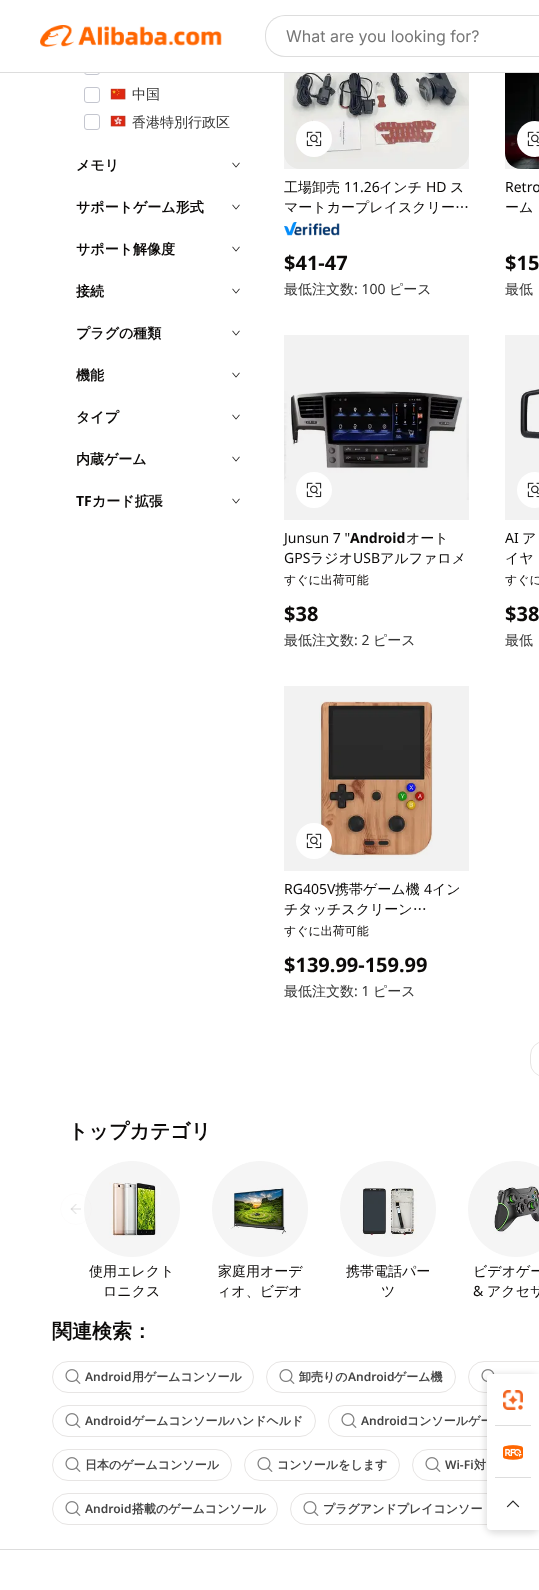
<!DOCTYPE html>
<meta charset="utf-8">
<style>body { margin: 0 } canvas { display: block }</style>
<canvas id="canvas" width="539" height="1590"></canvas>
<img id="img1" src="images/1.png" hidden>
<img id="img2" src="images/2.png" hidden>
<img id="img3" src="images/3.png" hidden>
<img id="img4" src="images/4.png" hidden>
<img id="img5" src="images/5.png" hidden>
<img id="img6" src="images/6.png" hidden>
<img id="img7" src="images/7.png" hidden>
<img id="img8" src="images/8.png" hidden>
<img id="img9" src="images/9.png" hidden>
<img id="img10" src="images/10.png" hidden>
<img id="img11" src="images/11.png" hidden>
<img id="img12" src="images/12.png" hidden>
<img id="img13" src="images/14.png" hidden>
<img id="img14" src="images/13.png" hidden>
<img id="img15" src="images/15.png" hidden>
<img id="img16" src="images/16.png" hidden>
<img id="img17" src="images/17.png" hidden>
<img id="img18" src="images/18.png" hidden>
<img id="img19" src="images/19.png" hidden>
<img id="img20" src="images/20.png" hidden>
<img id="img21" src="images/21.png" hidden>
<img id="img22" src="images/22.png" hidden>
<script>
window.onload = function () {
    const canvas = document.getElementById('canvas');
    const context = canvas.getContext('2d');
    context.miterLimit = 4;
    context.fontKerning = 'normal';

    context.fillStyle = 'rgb(255, 255, 255)';
    context.fillRect(0, 0, 539, 1590);
    context.beginPath();
    context.roundRect(84.5, 59.5, 15, 15, 2.5);
    context.strokeStyle = 'rgb(196, 198, 207)';
    context.stroke();
    context.fillRect(84, 59, 16, 13);
    context.fillStyle = 'rgb(221, 221, 221)';
    context.fillRect(0, 72, 539, 1);
    context.drawImage(document.getElementById('img1'), 40, 25, 182, 22);
    context.beginPath();
    context.roundRect(265, 15, 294, 42, 20);
    context.fill();
    context.fillStyle = 'rgb(255, 255, 255)';
    context.beginPath();
    context.roundRect(266, 16, 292, 40, 19);
    context.fill();
    context.beginPath();
    context.roundRect(84.5, 87.5, 15, 15, 2.5);
    context.stroke();
    context.drawImage(document.getElementById('img2'), 110, 88, 16, 12);
    context.beginPath();
    context.roundRect(84.5, 114.5, 15, 15, 2.5);
    context.stroke();
    context.drawImage(document.getElementById('img3'), 110, 115, 16, 12);
    context.drawImage(document.getElementById('img4'), 232, 162, 8, 6);
    context.drawImage(document.getElementById('img4'), 232, 204, 8, 6);
    context.drawImage(document.getElementById('img4'), 232, 246, 8, 6);
    context.drawImage(document.getElementById('img4'), 232, 288, 8, 6);
    context.drawImage(document.getElementById('img4'), 232, 330, 8, 6);
    context.drawImage(document.getElementById('img4'), 232, 372, 8, 6);
    context.drawImage(document.getElementById('img4'), 232, 414, 8, 6);
    context.drawImage(document.getElementById('img4'), 232, 456, 8, 6);
    context.drawImage(document.getElementById('img4'), 232, 498, 8, 6);
    context.drawImage(document.getElementById('img5'), 284, 73, 185, 96);
    context.fillStyle = 'rgba(0, 0, 0, 0.05)';
    context.fillRect(284, 73, 185, 96);
    context.fillStyle = 'rgb(255, 255, 255)';
    context.beginPath();
    context.arc(314, 139, 18, 0, 2 * Math.PI);
    context.fill();
    context.drawImage(document.getElementById('img6'), 306, 131, 16, 16);
    context.drawImage(document.getElementById('img7'), 284, 222, 56, 14);
    context.drawImage(document.getElementById('img8'), 505, 73, 34, 96);
    context.fillStyle = 'rgba(0, 0, 0, 0.05)';
    context.fillRect(505, 123, 34, 46);
    context.fillStyle = 'rgb(255, 255, 255)';
    context.beginPath();
    context.arc(535, 139, 18, 0, 2 * Math.PI);
    context.fill();
    context.drawImage(document.getElementById('img9'), 527, 131, 12, 16);
    context.drawImage(document.getElementById('img10'), 284, 391, 185, 109);
    context.fillStyle = 'rgba(0, 0, 0, 0.05)';
    context.fillRect(284, 335, 185, 185);
    context.fillStyle = 'rgb(255, 255, 255)';
    context.beginPath();
    context.arc(314, 490, 18, 0, 2 * Math.PI);
    context.fill();
    context.drawImage(document.getElementById('img6'), 306, 482, 16, 16);
    context.drawImage(document.getElementById('img11'), 520, 389, 19, 50);
    context.fillStyle = 'rgba(0, 0, 0, 0.05)';
    context.fillRect(505, 335, 34, 185);
    context.fillStyle = 'rgb(255, 255, 255)';
    context.beginPath();
    context.arc(535, 490, 18, 0, 2 * Math.PI);
    context.fill();
    context.drawImage(document.getElementById('img9'), 527, 482, 12, 16);
    context.drawImage(document.getElementById('img12'), 319, 700, 114, 159);
    context.fillStyle = 'rgba(0, 0, 0, 0.05)';
    context.fillRect(284, 686, 185, 185);
    context.fillStyle = 'rgb(255, 255, 255)';
    context.beginPath();
    context.arc(314, 841, 18, 0, 2 * Math.PI);
    context.fill();
    context.drawImage(document.getElementById('img6'), 306, 833, 16, 16);
    context.beginPath();
    context.roundRect(530.5, 1041.5, 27, 35, 17.5);
    context.strokeStyle = 'rgb(231, 229, 228)';
    context.stroke();
    context.drawImage(document.getElementById('img13'), 84, 1161, 96, 96);
    context.beginPath();
    context.arc(76, 1209, 15.5, 0, 2 * Math.PI);
    context.strokeStyle = 'rgba(231, 229, 228, 0.1)';
    context.stroke();
    context.drawImage(document.getElementById('img14'), 70, 1204, 11, 10);
    context.drawImage(document.getElementById('img15'), 212, 1161, 96, 96);
    context.drawImage(document.getElementById('img16'), 340, 1161, 96, 96);
    context.drawImage(document.getElementById('img17'), 468, 1161, 71, 96);
    context.beginPath();
    context.roundRect(52.5, 1361.5, 201, 31, 15.5);
    context.strokeStyle = 'rgb(231, 229, 228)';
    context.stroke();
    context.drawImage(document.getElementById('img18'), 65, 1369, 16, 15);
    context.beginPath();
    context.roundRect(266.5, 1361.5, 189, 31, 15.5);
    context.stroke();
    context.drawImage(document.getElementById('img18'), 279, 1369, 16, 15);
    context.beginPath();
    context.roundRect(468.5, 1361.5, 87, 31, 15.5);
    context.stroke();
    context.drawImage(document.getElementById('img19'), 481, 1369, 14, 13);
    context.beginPath();
    context.roundRect(52.5, 1405.5, 263, 31, 15.5);
    context.stroke();
    context.drawImage(document.getElementById('img18'), 65, 1413, 16, 15);
    context.beginPath();
    context.roundRect(328.5, 1405.5, 189, 31, 15.5);
    context.stroke();
    context.drawImage(document.getElementById('img18'), 341, 1413, 16, 15);
    context.beginPath();
    context.roundRect(52.5, 1449.5, 179, 31, 15.5);
    context.stroke();
    context.drawImage(document.getElementById('img18'), 65, 1457, 16, 15);
    context.beginPath();
    context.roundRect(244.5, 1449.5, 155, 31, 15.5);
    context.stroke();
    context.drawImage(document.getElementById('img18'), 257, 1457, 16, 15);
    context.beginPath();
    context.roundRect(412.5, 1449.5, 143, 31, 15.5);
    context.stroke();
    context.drawImage(document.getElementById('img18'), 425, 1457, 16, 15);
    context.beginPath();
    context.roundRect(52.5, 1493.5, 225, 31, 15.5);
    context.stroke();
    context.drawImage(document.getElementById('img18'), 65, 1501, 16, 15);
    context.beginPath();
    context.roundRect(290.5, 1493.5, 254, 31, 15.5);
    context.stroke();
    context.drawImage(document.getElementById('img18'), 303, 1501, 16, 15);
    context.fillStyle = 'rgba(0, 0, 0, 0.12)';
    context.filter = 'blur(3px)';
    context.beginPath();
    context.roundRect(485, 1374, 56, 160, 10);
    context.fill();
    context.filter = 'none';
    context.fillStyle = 'rgb(221, 221, 221)';
    context.fillRect(0, 1549, 539, 1);
    context.font = '16px Inter';
    context.fillStyle = 'rgb(118, 118, 118)';
    context.fillText('What are you looking for?', 286, 42);
    context.font = '500 14px WenQuanYi Zen Hei';
    context.fillStyle = 'rgb(51, 51, 51)';
    context.fillText('中国', 132, 99);
    context.fillText('香港特別行政区', 132, 127);
    context.font = 'bold 14px WenQuanYi Zen Hei';
    context.fillStyle = 'rgb(12, 10, 9)';
    context.fillText('メモリ', 76, 170);
    context.fillText('サポートゲーム形式', 76, 212);
    context.fillText('サポート解像度', 76, 254);
    context.fillText('接続', 76, 296);
    context.fillText('プラグの種類', 76, 338);
    context.fillText('機能', 76, 380);
    context.fillText('タイプ', 76, 422);
    context.fillText('内蔵ゲーム', 76, 464);
    context.font = 'bold 14px Noto Sans';
    context.fillText('TF', 76, 506);
    context.font = 'bold 14px WenQuanYi Zen Hei';
    context.fillText('カード拡張', 92, 506);
    context.font = '500 14px WenQuanYi Zen Hei';
    context.fillText('工場卸売', 284, 192);
    context.font = '14px Noto Sans';
    context.fillText('11.26', 344, 192);
    context.font = '500 14px WenQuanYi Zen Hei';
    context.fillText('インチ', 379, 192);
    context.font = '14px Noto Sans';
    context.fillText('HD', 426, 192);
    context.font = '500 14px WenQuanYi Zen Hei';
    context.fillText('ス', 450, 192);
    context.fillText('マートカープレイスクリー…', 284, 212);
    context.font = 'bold 20px Noto Sans';
    context.fillText('$41-47', 284, 270);
    context.font = '500 14px WenQuanYi Zen Hei';
    context.fillStyle = 'rgb(51, 51, 51)';
    context.fillText('最低注文数', 284, 294);
    context.font = '14px Noto Sans';
    context.fillText(': 100', 354, 294);
    context.font = '500 14px WenQuanYi Zen Hei';
    context.fillText('ピース', 389, 294);
    context.font = '14px Noto Sans';
    context.fillStyle = 'rgb(12, 10, 9)';
    context.fillText('Retro', 505, 192);
    context.font = '500 14px WenQuanYi Zen Hei';
    context.fillText('ーム', 505, 212);
    context.font = 'bold 20px Noto Sans';
    context.fillText('$15', 505, 270);
    context.font = '500 14px WenQuanYi Zen Hei';
    context.fillStyle = 'rgb(51, 51, 51)';
    context.fillText('最低', 505, 294);
    context.font = '14px Noto Sans';
    context.fillStyle = 'rgb(12, 10, 9)';
    context.fillText('Junsun 7 "', 284, 543);
    context.font = 'bold 14px Noto Sans';
    context.fillText('Android', 350, 543);
    context.font = '500 14px WenQuanYi Zen Hei';
    context.fillText('オート', 406, 543);
    context.font = '14px Noto Sans';
    context.fillText('GPS', 284, 563);
    context.font = '500 14px WenQuanYi Zen Hei';
    context.fillText('ラジオ', 310, 563);
    context.font = '14px Noto Sans';
    context.fillText('USB', 353, 563);
    context.font = '500 14px WenQuanYi Zen Hei';
    context.fillText('アルファロメ', 380, 563);
    context.font = '500 12px WenQuanYi Zen Hei';
    context.fillText('すぐに出荷可能', 284, 584);
    context.font = 'bold 20px Noto Sans';
    context.fillText('$38', 284, 621);
    context.font = '500 14px WenQuanYi Zen Hei';
    context.fillStyle = 'rgb(51, 51, 51)';
    context.fillText('最低注文数', 284, 645);
    context.font = '14px Noto Sans';
    context.fillText(': 2', 354, 645);
    context.font = '500 14px WenQuanYi Zen Hei';
    context.fillText('ピース', 373, 645);
    context.font = '14px Noto Sans';
    context.fillStyle = 'rgb(12, 10, 9)';
    context.fillText('AI', 505, 543);
    context.font = '500 14px WenQuanYi Zen Hei';
    context.fillText('ア', 522, 543);
    context.fillText('イヤ', 505, 563);
    context.font = '500 12px WenQuanYi Zen Hei';
    context.fillText('すぐに', 505, 584);
    context.font = 'bold 20px Noto Sans';
    context.fillText('$38', 505, 621);
    context.font = '500 14px WenQuanYi Zen Hei';
    context.fillStyle = 'rgb(51, 51, 51)';
    context.fillText('最低', 505, 645);
    context.font = '14px Noto Sans';
    context.fillStyle = 'rgb(12, 10, 9)';
    context.fillText('RG405V', 284, 894);
    context.font = '500 14px WenQuanYi Zen Hei';
    context.fillText('携帯ゲーム機', 335, 894);
    context.font = '14px Noto Sans';
    context.fillText('4', 424, 894);
    context.font = '500 14px WenQuanYi Zen Hei';
    context.fillText('イン', 432, 894);
    context.fillText('チタッチスクリーン…', 284, 914);
    context.font = '500 12px WenQuanYi Zen Hei';
    context.fillText('すぐに出荷可能', 284, 935);
    context.font = 'bold 20px Noto Sans';
    context.fillText('$139.99-159.99', 284, 972);
    context.font = '500 14px WenQuanYi Zen Hei';
    context.fillStyle = 'rgb(51, 51, 51)';
    context.fillText('最低注文数', 284, 996);
    context.font = '14px Noto Sans';
    context.fillText(': 1', 354, 996);
    context.font = '500 14px WenQuanYi Zen Hei';
    context.fillText('ピース', 373, 996);
    context.font = 'bold 20px WenQuanYi Zen Hei';
    context.fillStyle = 'rgb(12, 10, 9)';
    context.fillText('トップカテゴリ', 68, 1138);
    context.font = '500 14px WenQuanYi Zen Hei';
    context.fillText('使用エレクト', 89, 1276);
    context.fillText('ロニクス', 103, 1296);
    context.fillText('家庭用オーデ', 218, 1276);
    context.fillText('ィオ、ビデオ', 217, 1296);
    context.fillText('携帯電話パー', 346, 1276);
    context.fillText('ツ', 381, 1296);
    context.fillText('ビデオゲー', 473, 1276);
    context.font = '14px Noto Sans';
    context.fillText('&', 473, 1296);
    context.font = '500 14px WenQuanYi Zen Hei';
    context.fillText('アクセサ', 487, 1296);
    context.font = 'bold 20px WenQuanYi Zen Hei';
    context.fillText('関連検索：', 52, 1338);
    context.font = '600 12px Noto Sans';
    context.fillStyle = 'rgb(68, 68, 68)';
    context.fillText('Android', 85, 1381);
    context.font = 'bold 12px WenQuanYi Zen Hei';
    context.fillText('用ゲームコンソール', 132, 1381);
    context.fillText('卸売りの', 299, 1381);
    context.font = '600 12px Noto Sans';
    context.fillText('Android', 348, 1381);
    context.font = 'bold 12px WenQuanYi Zen Hei';
    context.fillText('ゲーム機', 394, 1381);
    context.font = '600 12px Noto Sans';
    context.fillText('Android', 85, 1425);
    context.font = 'bold 12px WenQuanYi Zen Hei';
    context.fillText('ゲームコンソールハンドヘルド', 132, 1425);
    context.font = '600 12px Noto Sans';
    context.fillText('Android', 361, 1425);
    context.font = 'bold 12px WenQuanYi Zen Hei';
    context.fillText('コンソールゲー', 407, 1425);
    context.fillText('日本のゲームコンソール', 85, 1469);
    context.fillText('コンソールをします', 277, 1469);
    context.font = '600 12px Noto Sans';
    context.fillText('Wi-Fi', 445, 1469);
    context.font = 'bold 12px WenQuanYi Zen Hei';
    context.fillText('対', 474, 1469);
    context.font = '600 12px Noto Sans';
    context.fillText('Android', 85, 1513);
    context.font = 'bold 12px WenQuanYi Zen Hei';
    context.fillText('搭載のゲームコンソール', 132, 1513);
    context.fillText('プラグアンドプレイコンソー', 323, 1513);
    context.fillStyle = 'rgb(255, 255, 255)';
    context.beginPath();
    context.roundRect(487, 1374, 52, 156, [8, 0, 0, 8]);
    context.fill();
    context.beginPath();
    context.roundRect(487, 1374, 52, 52, 4);
    context.fill();
    context.drawImage(document.getElementById('img20'), 503, 1390, 20, 20);
    context.fillStyle = 'rgb(221, 221, 221)';
    context.fillRect(495, 1425, 36, 1);
    context.drawImage(document.getElementById('img21'), 503, 1445, 20, 15);
    context.fillRect(495, 1477, 36, 1);
    context.fillStyle = 'rgb(255, 255, 255)';
    context.beginPath();
    context.roundRect(487, 1478, 52, 52, 4);
    context.fill();
    context.drawImage(document.getElementById('img22'), 506, 1500, 14, 8);
};
</script>
